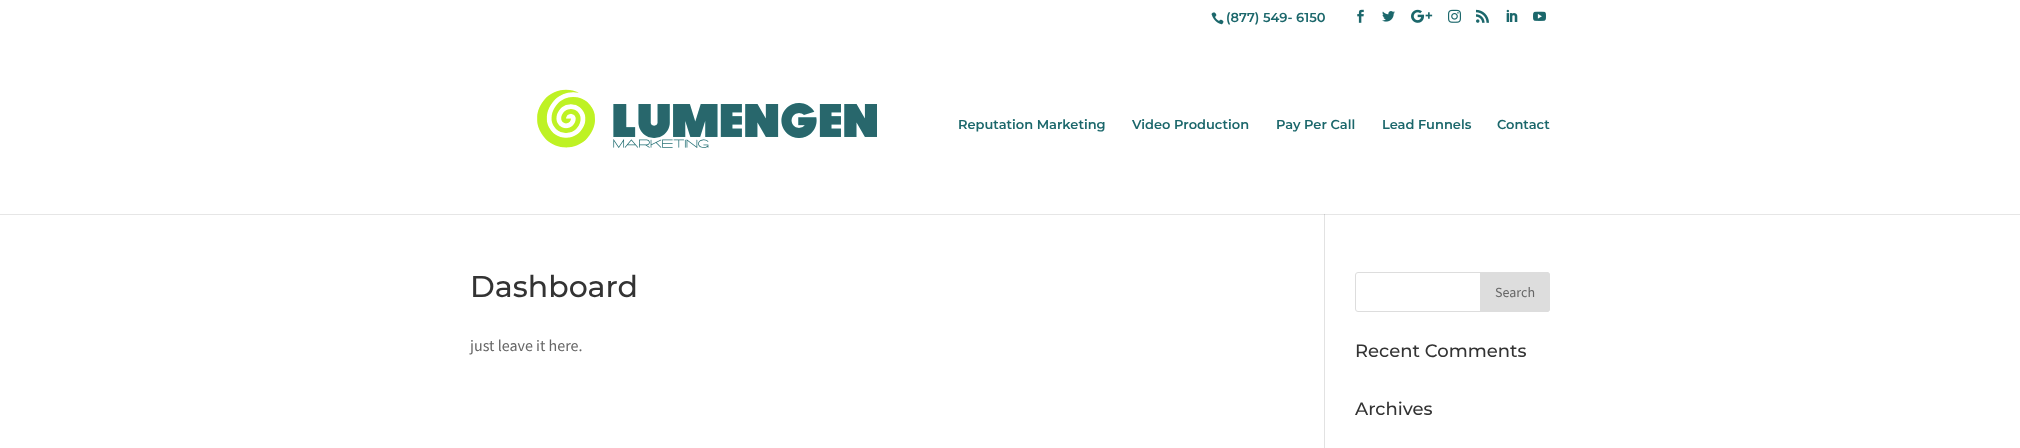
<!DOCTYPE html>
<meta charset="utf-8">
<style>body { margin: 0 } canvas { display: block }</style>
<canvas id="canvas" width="2020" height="448"></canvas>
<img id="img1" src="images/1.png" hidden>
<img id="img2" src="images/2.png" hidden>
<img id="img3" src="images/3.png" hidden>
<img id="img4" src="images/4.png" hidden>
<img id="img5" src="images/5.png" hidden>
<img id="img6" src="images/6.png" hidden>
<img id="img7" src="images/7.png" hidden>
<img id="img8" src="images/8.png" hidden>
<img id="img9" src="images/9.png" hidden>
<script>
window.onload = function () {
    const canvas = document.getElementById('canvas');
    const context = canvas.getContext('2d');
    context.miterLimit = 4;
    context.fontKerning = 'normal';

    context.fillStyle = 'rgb(255, 255, 255)';
    context.fillRect(0, 0, 2020, 448);
    context.fillStyle = 'rgb(230, 230, 230)';
    context.fillRect(0, 214, 2020, 1);
    context.drawImage(document.getElementById('img1'), 1211, 12, 13, 13);
    context.drawImage(document.getElementById('img2'), 1357, 9, 7, 14);
    context.drawImage(document.getElementById('img3'), 1382, 11, 13, 11);
    context.drawImage(document.getElementById('img4'), 1411, 9, 22, 14);
    context.drawImage(document.getElementById('img5'), 1448, 9, 13, 14);
    context.drawImage(document.getElementById('img6'), 1476, 9, 13, 14);
    context.drawImage(document.getElementById('img7'), 1506, 9, 12, 13);
    context.drawImage(document.getElementById('img8'), 1533, 11, 13, 10);
    context.drawImage(document.getElementById('img9'), 537, 89, 340, 59);
    context.fillStyle = 'rgb(226, 226, 226)';
    context.fillRect(1324, 214, 1, 234);
    context.fillStyle = 'rgb(203, 203, 203)';
    context.fillRect(1324, 214, 1, 1);
    context.beginPath();
    context.roundRect(1355.5, 272.5, 194, 39, 2.5);
    context.strokeStyle = 'rgb(221, 221, 221)';
    context.stroke();
    context.fillStyle = 'rgb(221, 221, 221)';
    context.beginPath();
    context.roundRect(1480.5, 272.5, 69, 39, [0, 2.5, 2.5, 0]);
    context.fill();
    context.stroke();
    context.font = '600 13px Montserrat';
    context.fillStyle = 'rgb(27, 103, 107)';
    context.fillText('(877) 549- 6150', 1226, 22);
    context.fillText('Reputation Marketing', 958, 129);
    context.fillText('Video Production', 1132, 129);
    context.fillText('Pay Per Call', 1276, 129);
    context.fillText('Lead Funnels', 1382, 129);
    context.fillText('Contact', 1497, 129);
    context.font = '500 30px Montserrat';
    context.fillStyle = 'rgb(51, 51, 51)';
    context.fillText('Dashboard', 470, 297);
    context.font = '16px Source Sans Pro';
    context.fillStyle = 'rgb(102, 102, 102)';
    context.fillText('just leave it here.', 470, 351);
    context.font = '14px Source Sans Pro';
    context.fillText('Search', 1495, 297);
    context.font = '500 18px Montserrat';
    context.fillStyle = 'rgb(51, 51, 51)';
    context.fillText('Recent Comments', 1355, 357);
    context.fillText('Archives', 1355, 415);
};
</script>
